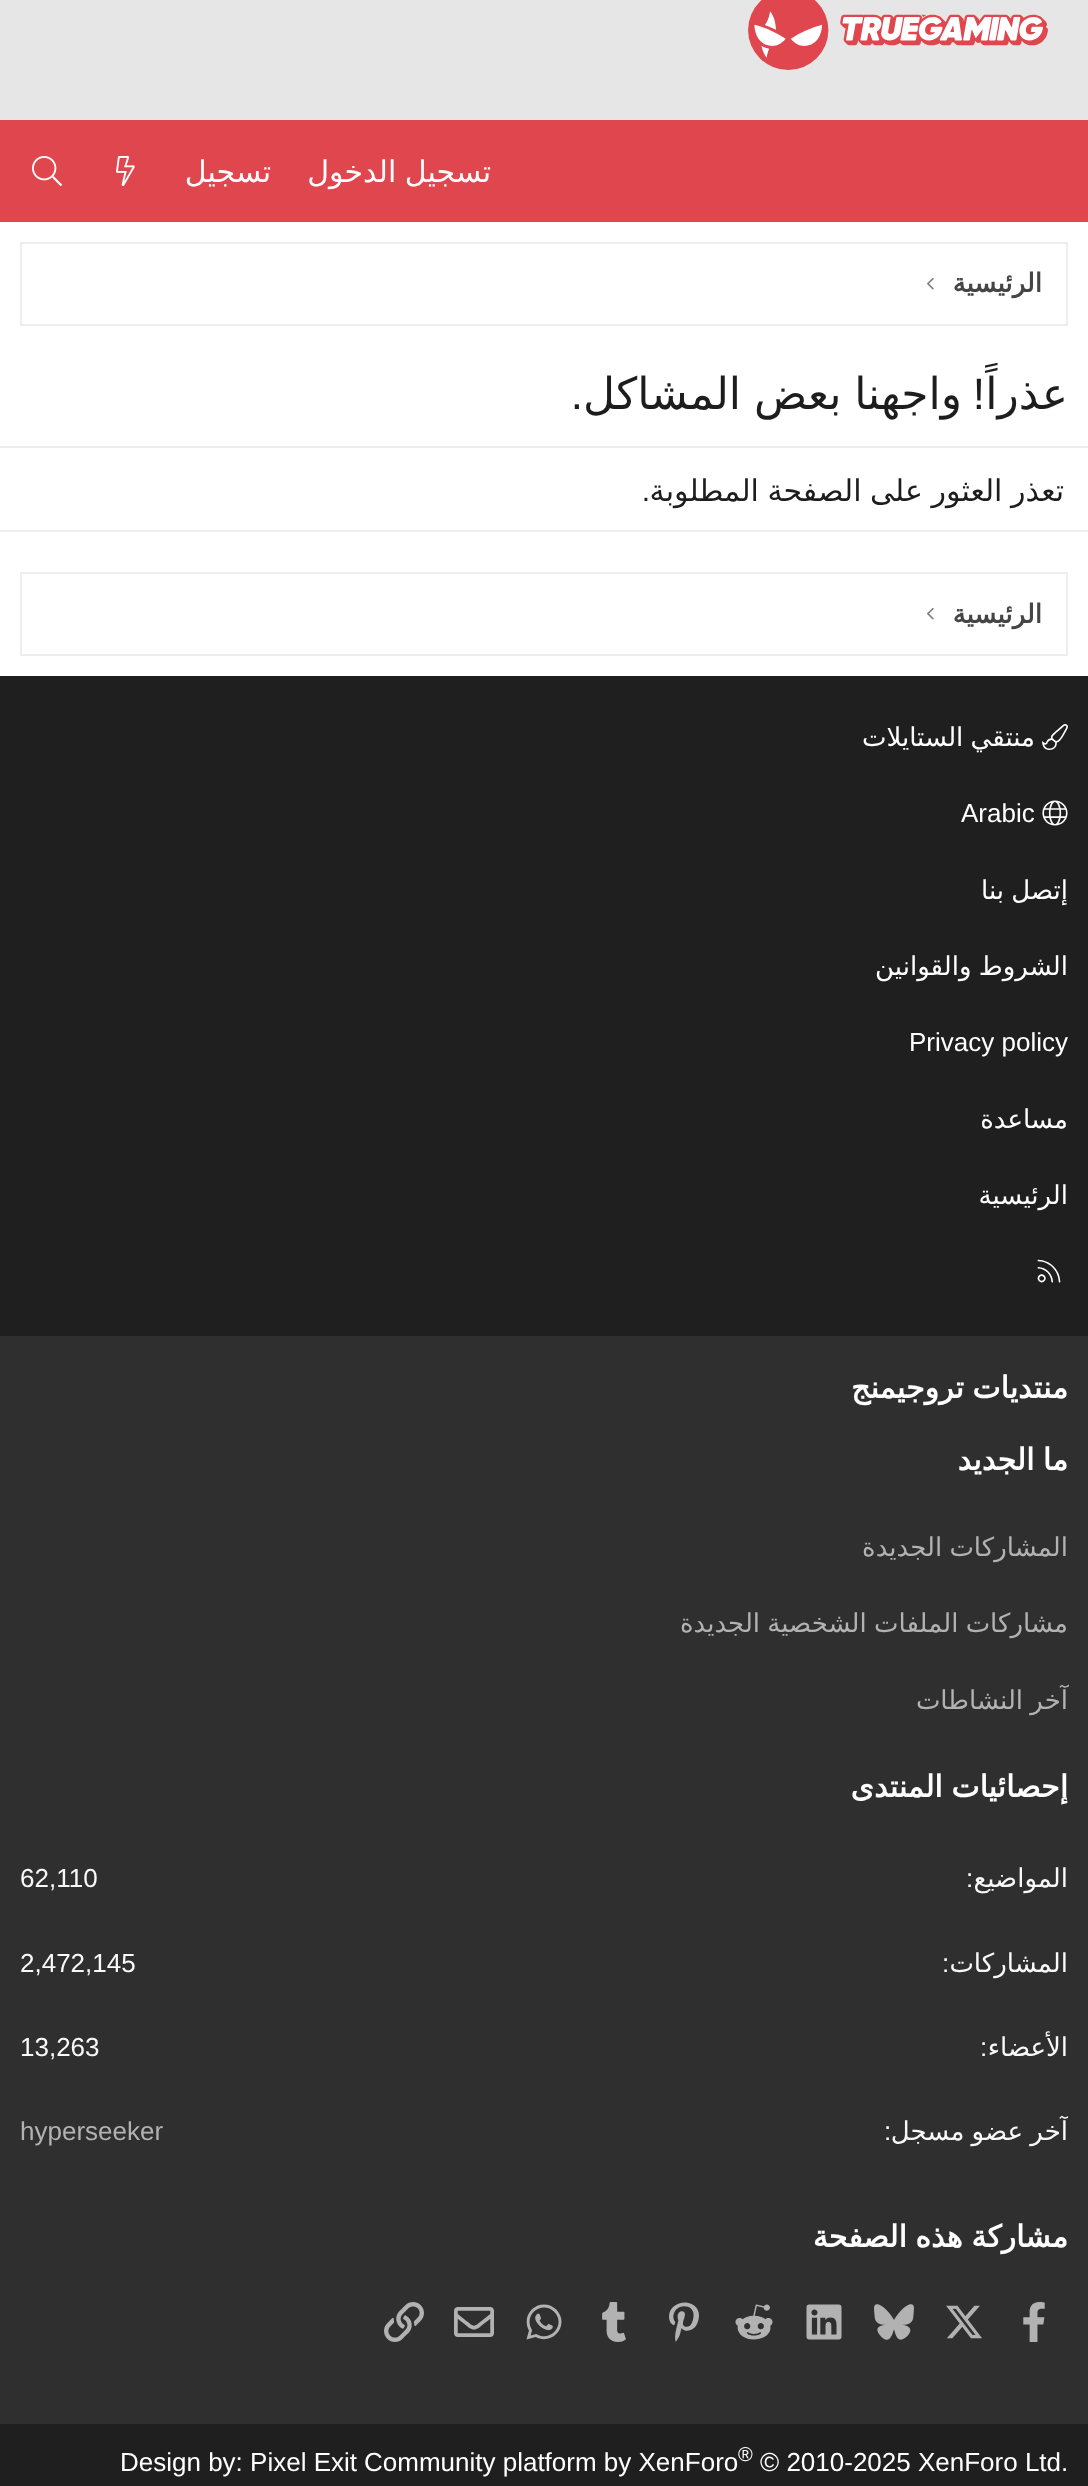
<!DOCTYPE html>
<meta charset="utf-8">
<style>body { margin: 0 } canvas { display: block }</style>
<canvas id="canvas" width="1088" height="2486"></canvas>
<img id="img1" src="images/1.png" hidden>
<img id="img2" src="images/2.png" hidden>
<img id="img3" src="images/3.png" hidden>
<img id="img4" src="images/4.png" hidden>
<img id="img5" src="images/5.png" hidden>
<img id="img6" src="images/6.png" hidden>
<img id="img7" src="images/7.png" hidden>
<img id="img8" src="images/8.png" hidden>
<img id="img9" src="images/9.png" hidden>
<img id="img10" src="images/10.png" hidden>
<img id="img11" src="images/11.png" hidden>
<img id="img12" src="images/12.png" hidden>
<img id="img13" src="images/13.png" hidden>
<img id="img14" src="images/14.png" hidden>
<img id="img15" src="images/15.png" hidden>
<img id="img16" src="images/16.png" hidden>
<img id="img17" src="images/17.png" hidden>
<script>
window.onload = function () {
    const canvas = document.getElementById('canvas');
    const context = canvas.getContext('2d');
    context.miterLimit = 4;
    context.fontKerning = 'normal';

    context.fillStyle = 'rgb(230, 230, 230)';
    context.fillRect(0, 0, 1088, 2486);
    context.drawImage(document.getElementById('img1'), 748, 0, 300, 70);
    context.fillStyle = 'rgb(224, 70, 78)';
    context.fillRect(0, 120, 1088, 102);
    context.drawImage(document.getElementById('img2'), 116, 156, 19, 30);
    context.drawImage(document.getElementById('img3'), 32, 156, 30, 30);
    context.fillStyle = 'rgb(255, 255, 255)';
    context.fillRect(0, 222, 1088, 454);
    context.strokeStyle = 'rgb(238, 238, 238)';
    context.lineWidth = 2;
    context.strokeRect(21, 243, 1046, 82);
    context.drawImage(document.getElementById('img4'), 927, 277, 7, 13);
    context.fillStyle = 'rgb(238, 238, 238)';
    context.fillRect(0, 446, 1088, 2);
    context.fillRect(0, 530, 1088, 2);
    context.strokeRect(21, 573, 1046, 82);
    context.drawImage(document.getElementById('img4'), 927, 607, 7, 13);
    context.fillStyle = 'rgb(31, 31, 31)';
    context.fillRect(0, 676, 1088, 660);
    context.drawImage(document.getElementById('img5'), 1042, 724, 26, 26);
    context.drawImage(document.getElementById('img6'), 1042, 800, 26, 26);
    context.drawImage(document.getElementById('img7'), 1037, 1259, 24, 24);
    context.fillStyle = 'rgb(47, 47, 47)';
    context.fillRect(0, 1336, 1088, 1088);
    context.drawImage(document.getElementById('img8'), 1023, 2302, 22, 40);
    context.drawImage(document.getElementById('img9'), 946, 2305, 36, 34);
    context.drawImage(document.getElementById('img10'), 874, 2304, 40, 36);
    context.drawImage(document.getElementById('img11'), 806, 2304, 36, 36);
    context.drawImage(document.getElementById('img12'), 735, 2304, 38, 36);
    context.drawImage(document.getElementById('img13'), 669, 2302, 30, 40);
    context.drawImage(document.getElementById('img14'), 602, 2302, 24, 40);
    context.drawImage(document.getElementById('img15'), 526, 2304, 36, 36);
    context.drawImage(document.getElementById('img16'), 454, 2307, 40, 30);
    context.drawImage(document.getElementById('img17'), 384, 2302, 40, 40);
    context.fillStyle = 'rgb(31, 31, 31)';
    context.fillRect(0, 2424, 1088, 62);
    context.wordSpacing = '-1px';
    context.direction = 'rtl';
    context.font = '30px DejaVu Sans';
    context.fillStyle = 'rgb(255, 255, 255)';
    context.fillText('تسجيل الدخول', 491, 182);
    context.wordSpacing = '0px';
    context.fillText('تسجيل', 271, 182);
    context.font = 'bold 26px DejaVu Sans';
    context.fillStyle = 'rgb(69, 69, 69)';
    context.fillText('الرئيسية', 1042, 292);
    context.font = '44px DejaVu Sans';
    context.fillStyle = 'rgb(29, 29, 29)';
    context.fillText('عذراً', 1068, 409);
    context.font = '44px Liberation Sans';
    context.fillText('!', 985, 409);
    context.wordSpacing = '-1px';
    context.font = '44px DejaVu Sans';
    context.fillText('واجهنا بعض المشاكل', 962, 409);
    context.wordSpacing = '0px';
    context.font = '44px Liberation Sans';
    context.fillText('.', 583, 409);
    context.wordSpacing = '-1px';
    context.font = '30px DejaVu Sans';
    context.fillText('تعذر العثور على الصفحة المطلوبة', 1064, 501);
    context.wordSpacing = '0px';
    context.font = '30px Liberation Sans';
    context.fillText('.', 650, 501);
    context.font = 'bold 26px DejaVu Sans';
    context.fillStyle = 'rgb(69, 69, 69)';
    context.fillText('الرئيسية', 1042, 623);
    context.wordSpacing = '-1px';
    context.font = '26px DejaVu Sans';
    context.fillStyle = 'rgb(255, 255, 255)';
    context.fillText('منتقي الستايلات', 1035, 746);
    context.wordSpacing = '0px';
    context.direction = 'ltr';
    context.font = '26px Liberation Sans';
    context.fillText('Arabic', 961, 822);
    context.wordSpacing = '-1px';
    context.direction = 'rtl';
    context.font = '26px DejaVu Sans';
    context.fillText('إتصل بنا', 1068, 899);
    context.fillText('الشروط والقوانين', 1068, 975);
    context.wordSpacing = '0px';
    context.direction = 'ltr';
    context.font = '26px Liberation Sans';
    context.fillText('Privacy policy', 909, 1051);
    context.direction = 'rtl';
    context.font = '26px DejaVu Sans';
    context.fillText('مساعدة', 1068, 1128);
    context.fillText('الرئيسية', 1068, 1204);
    context.wordSpacing = '-1px';
    context.font = 'bold 30px DejaVu Sans';
    context.fillText('منتديات تروجيمنج', 1068, 1398);
    context.fillText('ما الجديد', 1068, 1470);
    context.font = '26px DejaVu Sans';
    context.fillStyle = 'rgb(178, 178, 178)';
    context.fillText('المشاركات الجديدة', 1068, 1556);
    context.fillText('مشاركات الملفات الشخصية الجديدة', 1068, 1632);
    context.fillText('آخر النشاطات', 1068, 1709);
    context.font = 'bold 30px DejaVu Sans';
    context.fillStyle = 'rgb(255, 255, 255)';
    context.fillText('إحصائيات المنتدى', 1068, 1797);
    context.wordSpacing = '0px';
    context.font = '26px DejaVu Sans';
    context.fillStyle = 'rgb(249, 249, 249)';
    context.fillText('المواضيع', 1068, 1887);
    context.direction = 'ltr';
    context.font = '26px Liberation Sans';
    context.fillText(':', 966, 1887);
    context.fillText('62,110', 20, 1887);
    context.direction = 'rtl';
    context.font = '26px DejaVu Sans';
    context.fillText('المشاركات', 1068, 1972);
    context.direction = 'ltr';
    context.font = '26px Liberation Sans';
    context.fillText(':', 942, 1972);
    context.fillText('2,472,145', 20, 1972);
    context.direction = 'rtl';
    context.font = '26px DejaVu Sans';
    context.fillText('الأعضاء', 1068, 2056);
    context.direction = 'ltr';
    context.font = '26px Liberation Sans';
    context.fillText(':', 980, 2056);
    context.fillText('13,263', 20, 2056);
    context.save();
    context.beginPath();
    context.rect(20, 2090, 1048, 84);
    context.clip();
    context.wordSpacing = '-1px';
    context.direction = 'rtl';
    context.font = '26px DejaVu Sans';
    context.fillText('آخر عضو مسجل', 1068, 2140);
    context.restore();
    context.fillText(':', 884, 2140);
    context.fillStyle = 'rgb(178, 178, 178)';
    context.fillText('hyperseeker', 20, 2140);
    context.wordSpacing = '-1px';
    context.direction = 'rtl';
    context.font = 'bold 30px DejaVu Sans';
    context.fillStyle = 'rgb(255, 255, 255)';
    context.fillText('مشاركة هذه الصفحة', 1068, 2247);
    context.wordSpacing = '0px';
    context.direction = 'ltr';
    context.font = '26px Liberation Sans';
    context.fillText('© 2010-2025 XenForo Ltd.', 760, 2471);
    context.font = '20px Liberation Sans';
    context.fillText('®', 738, 2461);
    context.font = '26px Liberation Sans';
    context.fillText('Community platform by XenForo', 364, 2471);
    context.fillText('Design by: Pixel Exit', 120, 2471);
};
</script>
